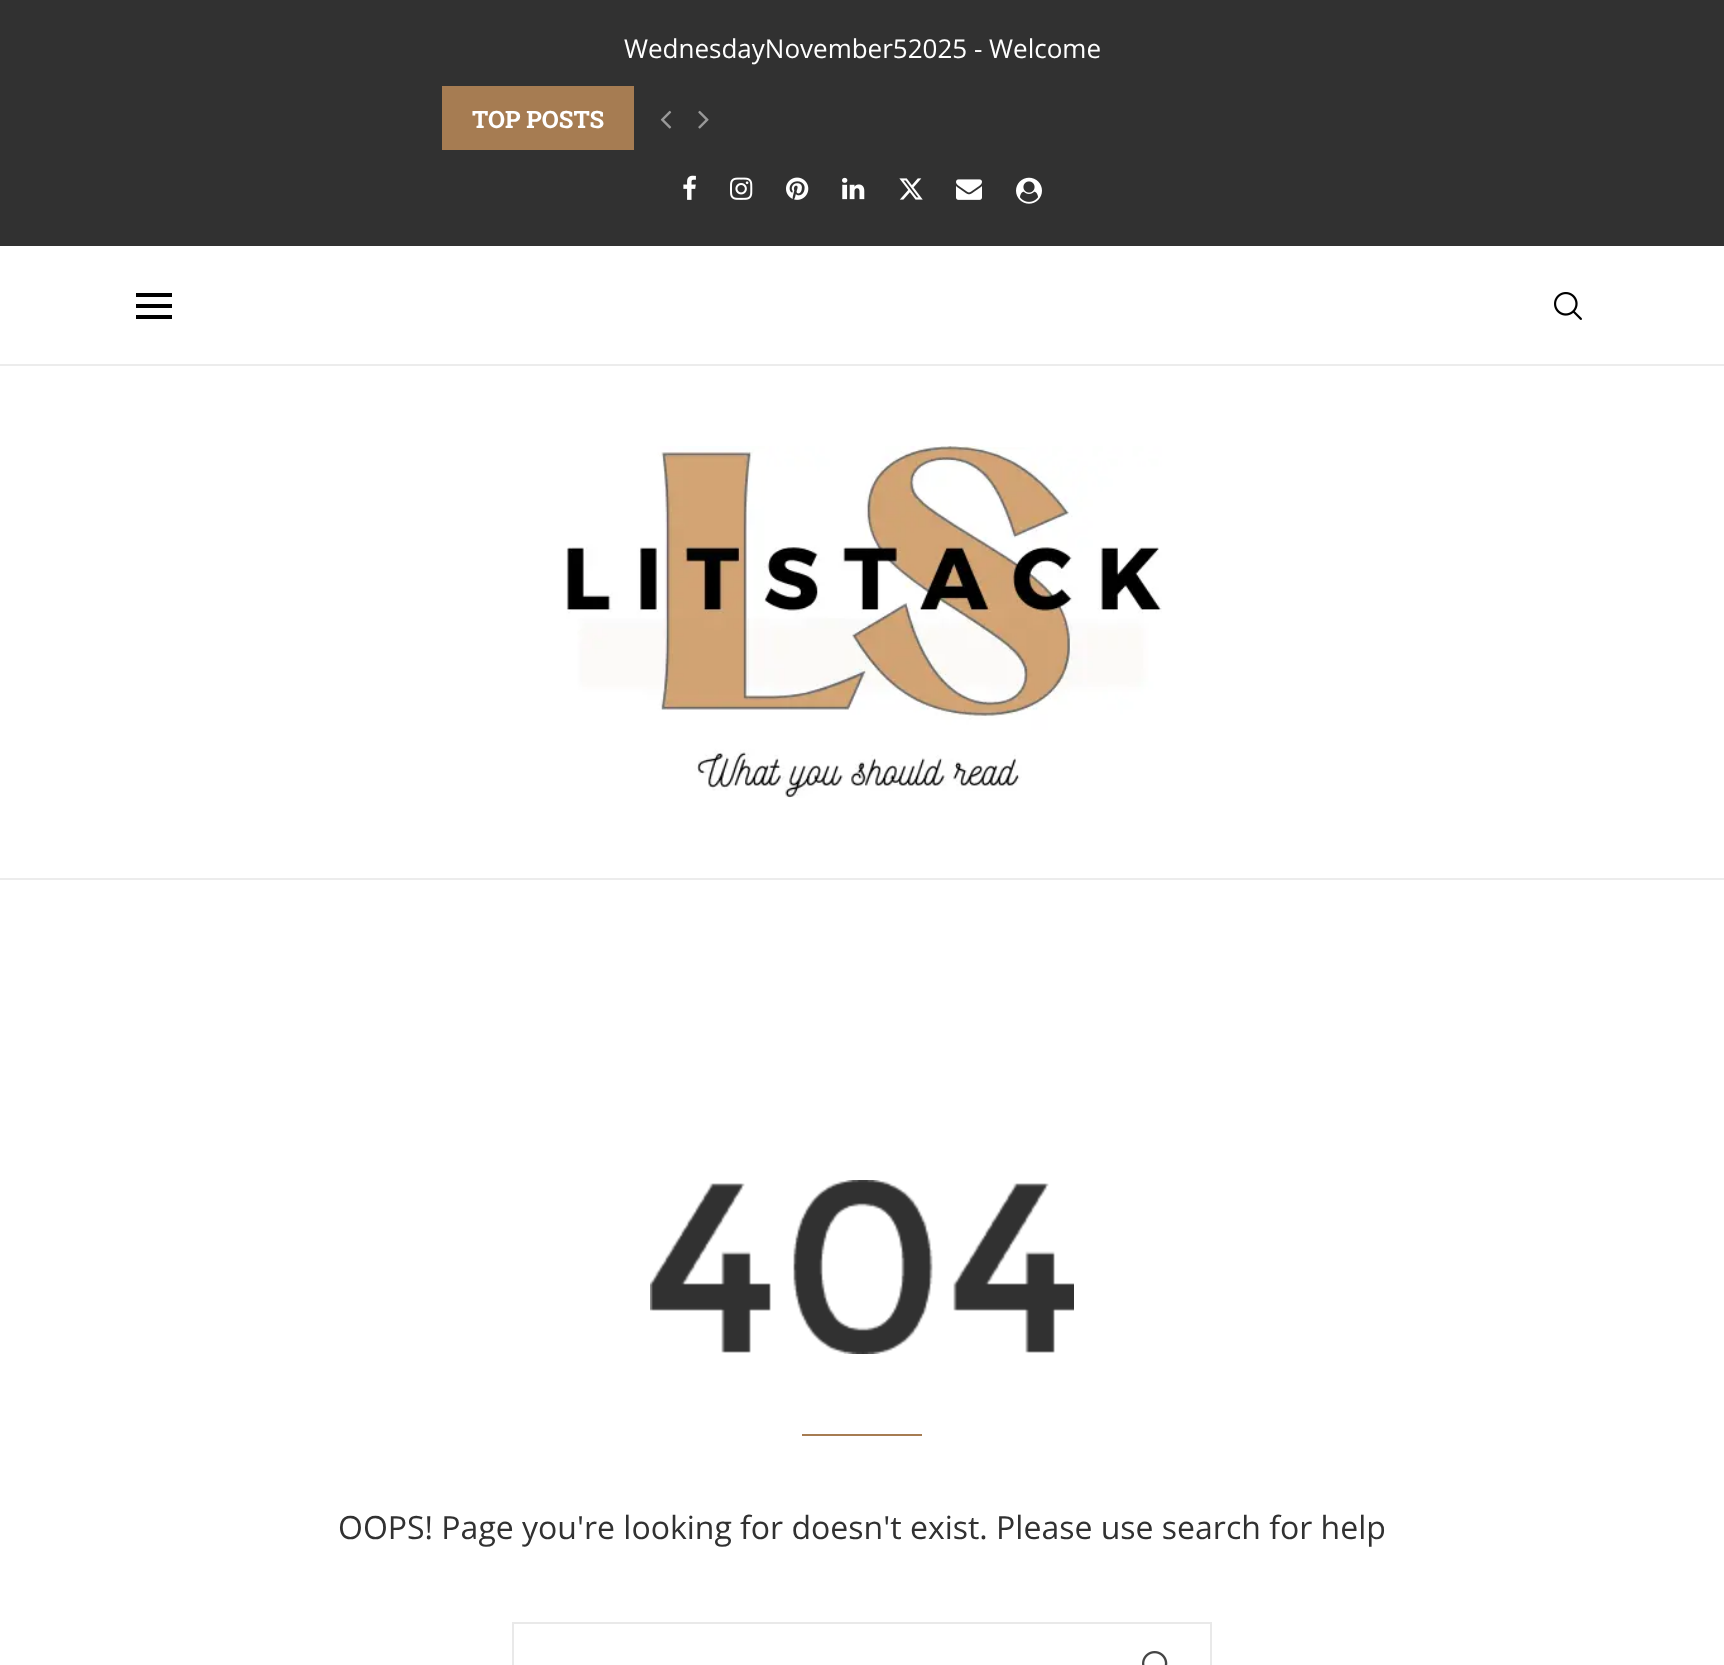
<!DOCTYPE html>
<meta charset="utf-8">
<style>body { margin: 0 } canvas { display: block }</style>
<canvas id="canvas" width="1724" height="1665"></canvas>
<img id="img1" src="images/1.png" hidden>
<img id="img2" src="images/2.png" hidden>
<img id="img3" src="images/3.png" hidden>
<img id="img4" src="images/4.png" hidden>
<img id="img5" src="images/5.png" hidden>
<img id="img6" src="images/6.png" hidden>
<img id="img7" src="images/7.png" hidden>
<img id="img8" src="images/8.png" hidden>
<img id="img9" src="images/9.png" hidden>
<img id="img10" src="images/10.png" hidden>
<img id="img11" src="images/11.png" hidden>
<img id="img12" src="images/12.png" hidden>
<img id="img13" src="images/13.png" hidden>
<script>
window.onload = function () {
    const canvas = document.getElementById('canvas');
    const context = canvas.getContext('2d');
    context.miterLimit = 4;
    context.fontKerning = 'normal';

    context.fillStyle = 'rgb(255, 255, 255)';
    context.fillRect(0, 0, 1724, 1665);
    context.fillStyle = 'rgb(49, 49, 49)';
    context.fillRect(0, 0, 1724, 246);
    context.fillStyle = 'rgb(166, 124, 82)';
    context.fillRect(442, 86, 192, 64);
    context.drawImage(document.getElementById('img1'), 660, 110, 12, 19);
    context.drawImage(document.getElementById('img2'), 698, 110, 11, 19);
    context.drawImage(document.getElementById('img3'), 683, 175, 13, 25);
    context.drawImage(document.getElementById('img4'), 730, 177, 23, 23);
    context.drawImage(document.getElementById('img5'), 786, 177, 23, 23);
    context.drawImage(document.getElementById('img6'), 842, 177, 23, 23);
    context.drawImage(document.getElementById('img7'), 899, 178, 24, 22);
    context.drawImage(document.getElementById('img8'), 956, 179, 26, 21);
    context.drawImage(document.getElementById('img9'), 1016, 177, 26, 27);
    context.fillStyle = 'rgb(236, 236, 236)';
    context.fillRect(0, 364, 1724, 2);
    context.fillStyle = 'rgb(0, 0, 0)';
    context.fillRect(136, 293, 36, 4);
    context.fillRect(136, 304, 36, 4);
    context.fillRect(136, 315, 36, 4);
    context.drawImage(document.getElementById('img10'), 1554, 292, 28, 28);
    context.fillStyle = 'rgb(236, 236, 236)';
    context.fillRect(0, 878, 1724, 2);
    context.drawImage(document.getElementById('img11'), 566, 446, 596, 352);
    context.drawImage(document.getElementById('img12'), 650, 1180, 424, 174);
    context.fillStyle = 'rgb(166, 124, 82)';
    context.fillRect(802, 1434, 120, 2);
    context.strokeStyle = 'rgb(233, 233, 233)';
    context.lineWidth = 2;
    context.strokeRect(513, 1623, 698, 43);
    context.drawImage(document.getElementById('img13'), 1142, 1651, 26, 14);
    context.font = '26px Open Sans';
    context.fillStyle = 'rgb(255, 255, 255)';
    context.fillText('WednesdayNovember52025 - Welcome', 624, 58);
    context.font = 'bold 24px Roboto Slab';
    context.fillText('TOP POSTS', 472, 128);
    context.font = '32px Open Sans';
    context.fillStyle = 'rgb(49, 49, 49)';
    context.fillText('OOPS! Page you\'re looking for doesn\'t exist. Please use search for help', 338, 1539);
};
</script>
